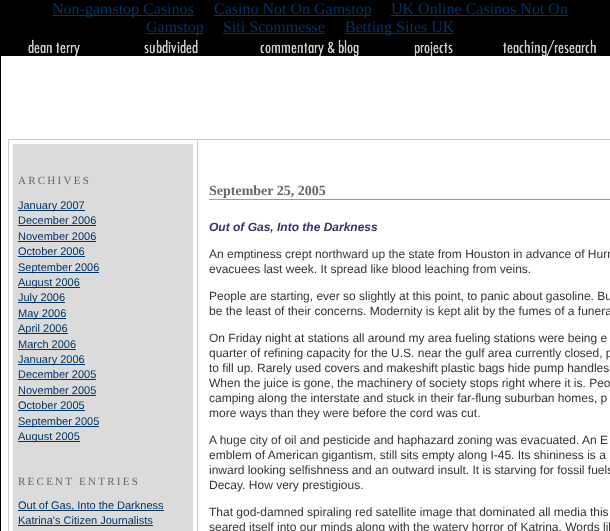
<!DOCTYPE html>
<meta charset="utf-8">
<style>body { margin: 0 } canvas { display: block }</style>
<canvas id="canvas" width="610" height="531"></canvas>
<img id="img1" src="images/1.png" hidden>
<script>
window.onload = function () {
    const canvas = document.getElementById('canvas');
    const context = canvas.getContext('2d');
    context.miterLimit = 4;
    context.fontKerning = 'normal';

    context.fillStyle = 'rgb(0, 0, 0)';
    context.fillRect(0, 0, 610, 531);
    context.fillStyle = 'rgb(0, 51, 102)';
    context.fillRect(52, 15, 142, 1);
    context.fillRect(214, 15, 157, 1);
    context.fillRect(391, 15, 177, 1);
    context.fillRect(146, 33, 57, 1);
    context.fillRect(223, 33, 102, 1);
    context.fillRect(345, 33, 109, 1);
    context.fillStyle = 'rgb(255, 255, 255)';
    context.fillRect(1, 56, 609, 83);
    context.drawImage(document.getElementById('img1'), 1, 36, 609, 20);
    context.fillRect(1, 139, 7, 392);
    context.fillRect(198, 140, 412, 391);
    context.fillStyle = 'rgb(204, 204, 204)';
    context.fillRect(8, 139, 602, 1);
    context.fillRect(8, 140, 1, 391);
    context.fillStyle = 'rgb(219, 219, 219)';
    context.beginPath();
    context.rect(11, 142, 184, 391);
    context.fill();
    context.strokeStyle = 'rgb(255, 255, 255)';
    context.lineWidth = 4;
    context.stroke();
    context.fillStyle = 'rgb(0, 51, 102)';
    context.fillRect(18, 210, 67, 1);
    context.fillRect(18, 225, 78, 1);
    context.fillRect(18, 241, 78, 1);
    context.fillRect(18, 256, 67, 1);
    context.fillRect(18, 272, 81, 1);
    context.fillRect(18, 287, 62, 1);
    context.fillRect(18, 302, 47, 1);
    context.fillRect(18, 318, 48, 1);
    context.fillRect(18, 333, 50, 1);
    context.fillRect(18, 349, 58, 1);
    context.fillRect(18, 364, 67, 1);
    context.fillRect(18, 379, 78, 1);
    context.fillRect(18, 395, 78, 1);
    context.fillRect(18, 410, 67, 1);
    context.fillRect(18, 426, 81, 1);
    context.fillRect(18, 441, 62, 1);
    context.fillRect(18, 510, 146, 1);
    context.fillRect(18, 525, 135, 1);
    context.fillStyle = 'rgb(204, 204, 204)';
    context.fillRect(197, 140, 1, 391);
    context.fillStyle = 'rgb(153, 153, 153)';
    context.fillRect(209, 199, 401, 1);
    context.font = '16px Liberation Serif';
    context.fillStyle = 'rgb(0, 51, 102)';
    context.fillText('Non-gamstop Casinos', 52, 14);
    context.fillText('Casino Not On Gamstop', 214, 14);
    context.fillText('UK Online Casinos Not On', 391, 14);
    context.fillText('Gamstop', 146, 32);
    context.fillText('Siti Scommesse', 223, 32);
    context.fillText('Betting Sites UK', 345, 32);
    context.letterSpacing = '2.25px';
    context.font = '11px Liberation Serif';
    context.fillStyle = 'rgb(102, 102, 102)';
    context.fillText('ARCHIVES', 18, 184);
    context.letterSpacing = '0px';
    context.font = '11px Liberation Sans';
    context.fillStyle = 'rgb(0, 51, 102)';
    context.fillText('January 2007', 18, 209);
    context.fillText('December 2006', 18, 224);
    context.fillText('November 2006', 18, 240);
    context.fillText('October 2006', 18, 255);
    context.fillText('September 2006', 18, 271);
    context.fillText('August 2006', 18, 286);
    context.fillText('July 2006', 18, 301);
    context.fillText('May 2006', 18, 317);
    context.fillText('April 2006', 18, 332);
    context.fillText('March 2006', 18, 348);
    context.fillText('January 2006', 18, 363);
    context.fillText('December 2005', 18, 378);
    context.fillText('November 2005', 18, 394);
    context.fillText('October 2005', 18, 409);
    context.fillText('September 2005', 18, 425);
    context.fillText('August 2005', 18, 440);
    context.letterSpacing = '2.25px';
    context.font = '11px Liberation Serif';
    context.fillStyle = 'rgb(102, 102, 102)';
    context.fillText('RECENT ENTRIES', 18, 485);
    context.letterSpacing = '0px';
    context.font = '11px Liberation Sans';
    context.fillStyle = 'rgb(0, 51, 102)';
    context.fillText('Out of Gas, Into the Darkness', 18, 509);
    context.fillText('Katrina\'s Citizen Journalists', 18, 524);
    context.font = 'bold 14px Liberation Serif';
    context.fillStyle = 'rgb(102, 102, 102)';
    context.fillText('September 25, 2005', 209, 195);
    context.font = 'italic bold 12px Liberation Sans';
    context.fillStyle = 'rgb(51, 51, 102)';
    context.fillText('Out of Gas, Into the Darkness', 209, 231);
    context.font = '12px Liberation Sans';
    context.fillStyle = 'rgb(51, 51, 51)';
    context.fillText('An emptiness crept northward up the state from Houston in advance of Hurr', 209, 258);
    context.fillText('evacuees last week. It spread like blood leaching from veins.', 209, 273);
    context.fillText('People are starting, ever so slightly at this point, to panic about gasoline. Bu', 209, 300);
    context.fillText('be the least of their concerns. Modernity is kept alit by the fumes of a funera', 209, 315);
    context.fillText('On Friday night at stations all around my area fueling stations were being e', 209, 342);
    context.fillText('quarter of refining capacity for the U.S. near the gulf area currently closed, p', 209, 357);
    context.fillText('to fill up. Rarely used covers and makeshift plastic bags hide pump handles', 209, 372);
    context.fillText('When the juice is gone, the machinery of society stops right where it is. Peo', 209, 387);
    context.fillText('camping along the interstate and stuck in their far-flung suburban homes, p', 209, 402);
    context.fillText('more ways than they were before the cord was cut.', 209, 417);
    context.fillText('A huge city of oil and pesticide and haphazard zoning was evacuated. An E', 209, 444);
    context.fillText('emblem of American gigantism, still sits empty along I-45. Its shininess is a', 209, 459);
    context.fillText('inward looking selfishness and an outward insult. It is starving for fossil fuels', 209, 474);
    context.fillText('Decay. How very prestigious.', 209, 489);
    context.fillText('That god-damned spiraling red satellite image that dominated all media this', 209, 516);
    context.fillText('seared itself into our minds along with the watery horror of Katrina. Words lik', 209, 531);
};
</script>
